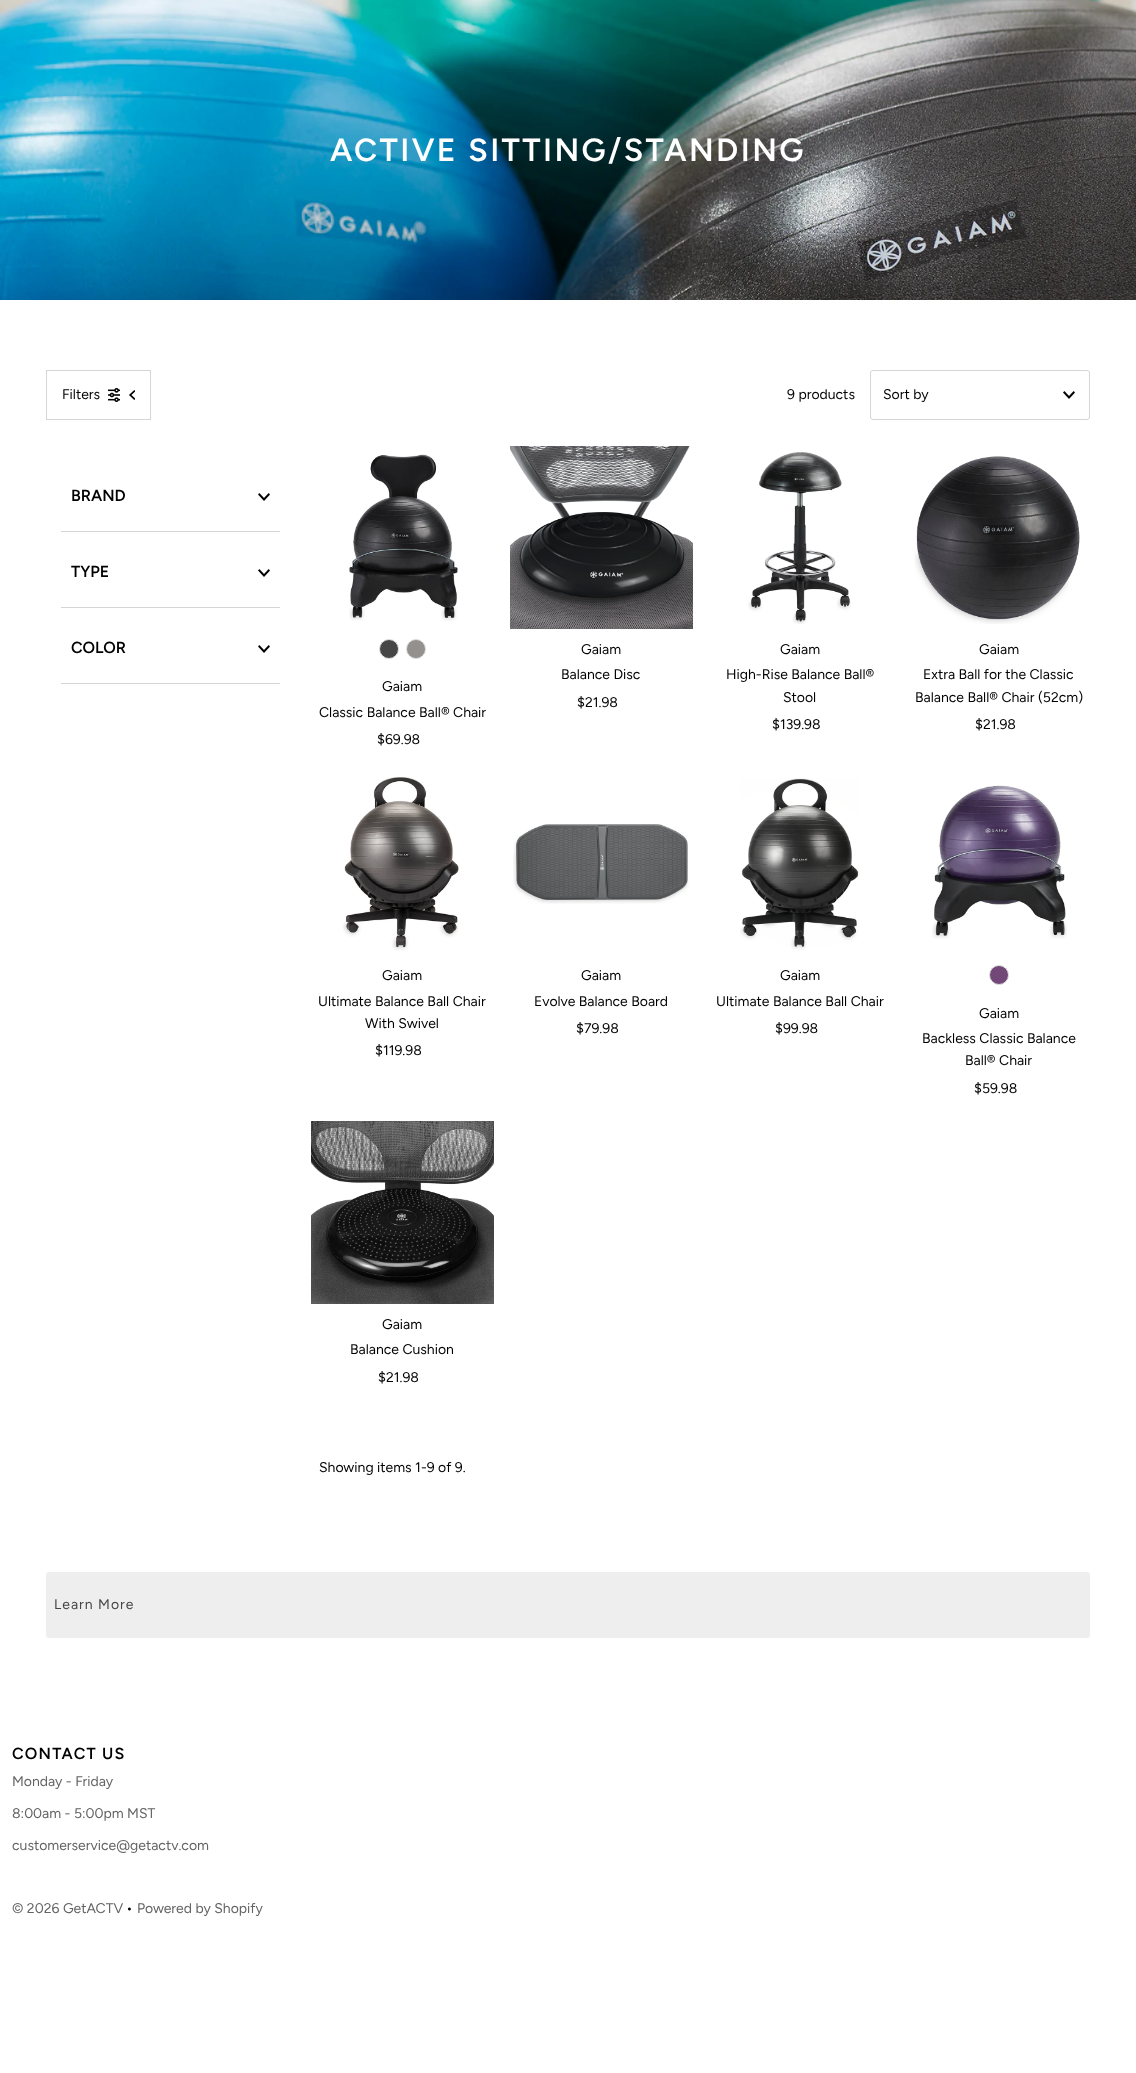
<!DOCTYPE html>
<meta charset="utf-8">
<style>body { margin: 0 } canvas { display: block }</style>
<canvas id="canvas" width="1136" height="2073"></canvas>
<img id="img1" src="images/1.png" hidden>
<img id="img2" src="images/2.png" hidden>
<img id="img3" src="images/3.png" hidden>
<img id="img4" src="images/4.png" hidden>
<img id="img5" src="images/5.png" hidden>
<img id="img6" src="images/6.png" hidden>
<img id="img7" src="images/7.png" hidden>
<img id="img8" src="images/8.png" hidden>
<img id="img9" src="images/9.png" hidden>
<img id="img10" src="images/10.png" hidden>
<img id="img11" src="images/11.png" hidden>
<img id="img12" src="images/12.png" hidden>
<img id="img13" src="images/13.png" hidden>
<script>
window.onload = function () {
    const canvas = document.getElementById('canvas');
    const context = canvas.getContext('2d');
    context.miterLimit = 4;
    context.fontKerning = 'normal';

    context.fillStyle = 'rgb(255, 255, 255)';
    context.fillRect(0, 0, 1136, 2073);
    context.drawImage(document.getElementById('img1'), 0, 0, 1136, 300);
    context.strokeStyle = 'rgb(213, 213, 213)';
    context.strokeRect(46.5, 370.5, 104, 49);
    context.drawImage(document.getElementById('img2'), 108, 388, 12, 14);
    context.drawImage(document.getElementById('img3'), 129, 390, 6, 10);
    context.beginPath();
    context.roundRect(870.5, 370.5, 219, 49, 2.5);
    context.stroke();
    context.drawImage(document.getElementById('img4'), 1063, 391, 12, 8);
    context.fillStyle = 'rgb(213, 213, 213)';
    context.fillRect(61, 531, 219, 1);
    context.drawImage(document.getElementById('img4'), 258, 493, 12, 8);
    context.fillRect(61, 607, 219, 1);
    context.drawImage(document.getElementById('img4'), 258, 569, 12, 8);
    context.fillRect(61, 683, 219, 1);
    context.drawImage(document.getElementById('img4'), 258, 645, 12, 8);
    context.drawImage(document.getElementById('img5'), 349, 454, 109, 167);
    context.fillStyle = 'rgb(70, 70, 70)';
    context.beginPath();
    context.arc(389, 649, 9.5, 0, 2 * Math.PI);
    context.fill();
    context.strokeStyle = 'rgb(221, 221, 221)';
    context.stroke();
    context.fillStyle = 'rgb(148, 144, 141)';
    context.beginPath();
    context.arc(416, 649, 9.5, 0, 2 * Math.PI);
    context.fill();
    context.stroke();
    context.drawImage(document.getElementById('img6'), 510, 446, 183, 183);
    context.drawImage(document.getElementById('img7'), 748, 452, 103, 172);
    context.drawImage(document.getElementById('img8'), 914, 456, 166, 168);
    context.drawImage(document.getElementById('img9'), 342, 777, 117, 174);
    context.drawImage(document.getElementById('img10'), 513, 824, 177, 80);
    context.drawImage(document.getElementById('img11'), 740, 778, 119, 172);
    context.drawImage(document.getElementById('img12'), 932, 785, 135, 154);
    context.fillStyle = 'rgb(114, 72, 120)';
    context.beginPath();
    context.arc(999, 975, 9.5, 0, 2 * Math.PI);
    context.fill();
    context.stroke();
    context.drawImage(document.getElementById('img13'), 311, 1121, 183, 183);
    context.fillStyle = 'rgb(238, 238, 238)';
    context.beginPath();
    context.roundRect(46, 1572, 1044, 66, 3);
    context.fill();
    context.letterSpacing = '2.4px';
    context.font = '600 32px Figtree';
    context.fillStyle = 'rgb(255, 255, 255)';
    context.fillText('ACTIVE SITTING/STANDING', 330, 161);
    context.letterSpacing = '0px';
    context.font = '14px Figtree';
    context.fillStyle = 'rgb(0, 0, 0)';
    context.fillText('Filters', 62, 399);
    context.fillText('9 products', 787, 399);
    context.fillText('Sort by', 883, 399);
    context.font = '600 16px Figtree';
    context.fillText('BRAND', 71, 501);
    context.fillText('TYPE', 71, 577);
    context.fillText('COLOR', 71, 653);
    context.font = '14px Figtree';
    context.fillText('Gaiam', 382, 691);
    context.fillText('Classic Balance Ball® Chair', 319, 717);
    context.fillText('$69.98', 377, 744);
    context.fillText('Gaiam', 581, 654);
    context.fillText('Balance Disc', 561, 679);
    context.fillText('$21.98', 577, 707);
    context.fillText('Gaiam', 780, 654);
    context.fillText('High-Rise Balance Ball®', 726, 679);
    context.fillText('Stool', 783, 702);
    context.fillText('$139.98', 772, 729);
    context.fillText('Gaiam', 979, 654);
    context.fillText('Extra Ball for the Classic', 923, 679);
    context.fillText('Balance Ball® Chair (52cm)', 915, 702);
    context.fillText('$21.98', 975, 729);
    context.fillText('Gaiam', 382, 980);
    context.fillText('Ultimate Balance Ball Chair', 318, 1006);
    context.fillText('With Swivel', 365, 1028);
    context.fillText('$119.98', 375, 1055);
    context.fillText('Gaiam', 581, 980);
    context.fillText('Evolve Balance Board', 534, 1006);
    context.fillText('$79.98', 576, 1033);
    context.fillText('Gaiam', 780, 980);
    context.fillText('Ultimate Balance Ball Chair', 716, 1006);
    context.fillText('$99.98', 775, 1033);
    context.fillText('Gaiam', 979, 1018);
    context.fillText('Backless Classic Balance', 922, 1043);
    context.fillText('Ball® Chair', 965, 1065);
    context.fillText('$59.98', 974, 1093);
    context.fillText('Gaiam', 382, 1329);
    context.fillText('Balance Cushion', 350, 1354);
    context.fillText('$21.98', 378, 1382);
    context.fillText('Showing items 1-9 of 9.', 319, 1472);
    context.letterSpacing = '1px';
    context.fillStyle = 'rgb(68, 68, 68)';
    context.fillText('Learn More', 54, 1609);
    context.letterSpacing = '1.25px';
    context.font = '600 16px Figtree';
    context.fillStyle = 'rgb(0, 0, 0)';
    context.fillText('CONTACT US', 12, 1759);
    context.letterSpacing = '0px';
    context.font = '14px Figtree';
    context.fillStyle = 'rgb(100, 98, 98)';
    context.fillText('Monday - Friday', 12, 1786);
    context.fillText('8:00am - 5:00pm MST', 12, 1818);
    context.fillText('customerservice@getactv.com', 12, 1850);
    context.fillText('© 2026 GetACTV', 12, 1913);
    context.fillStyle = 'rgb(0, 0, 0)';
    context.fillText('•', 126, 1913);
    context.fillStyle = 'rgb(100, 98, 98)';
    context.fillText('Powered by Shopify', 137, 1913);
};
</script>
